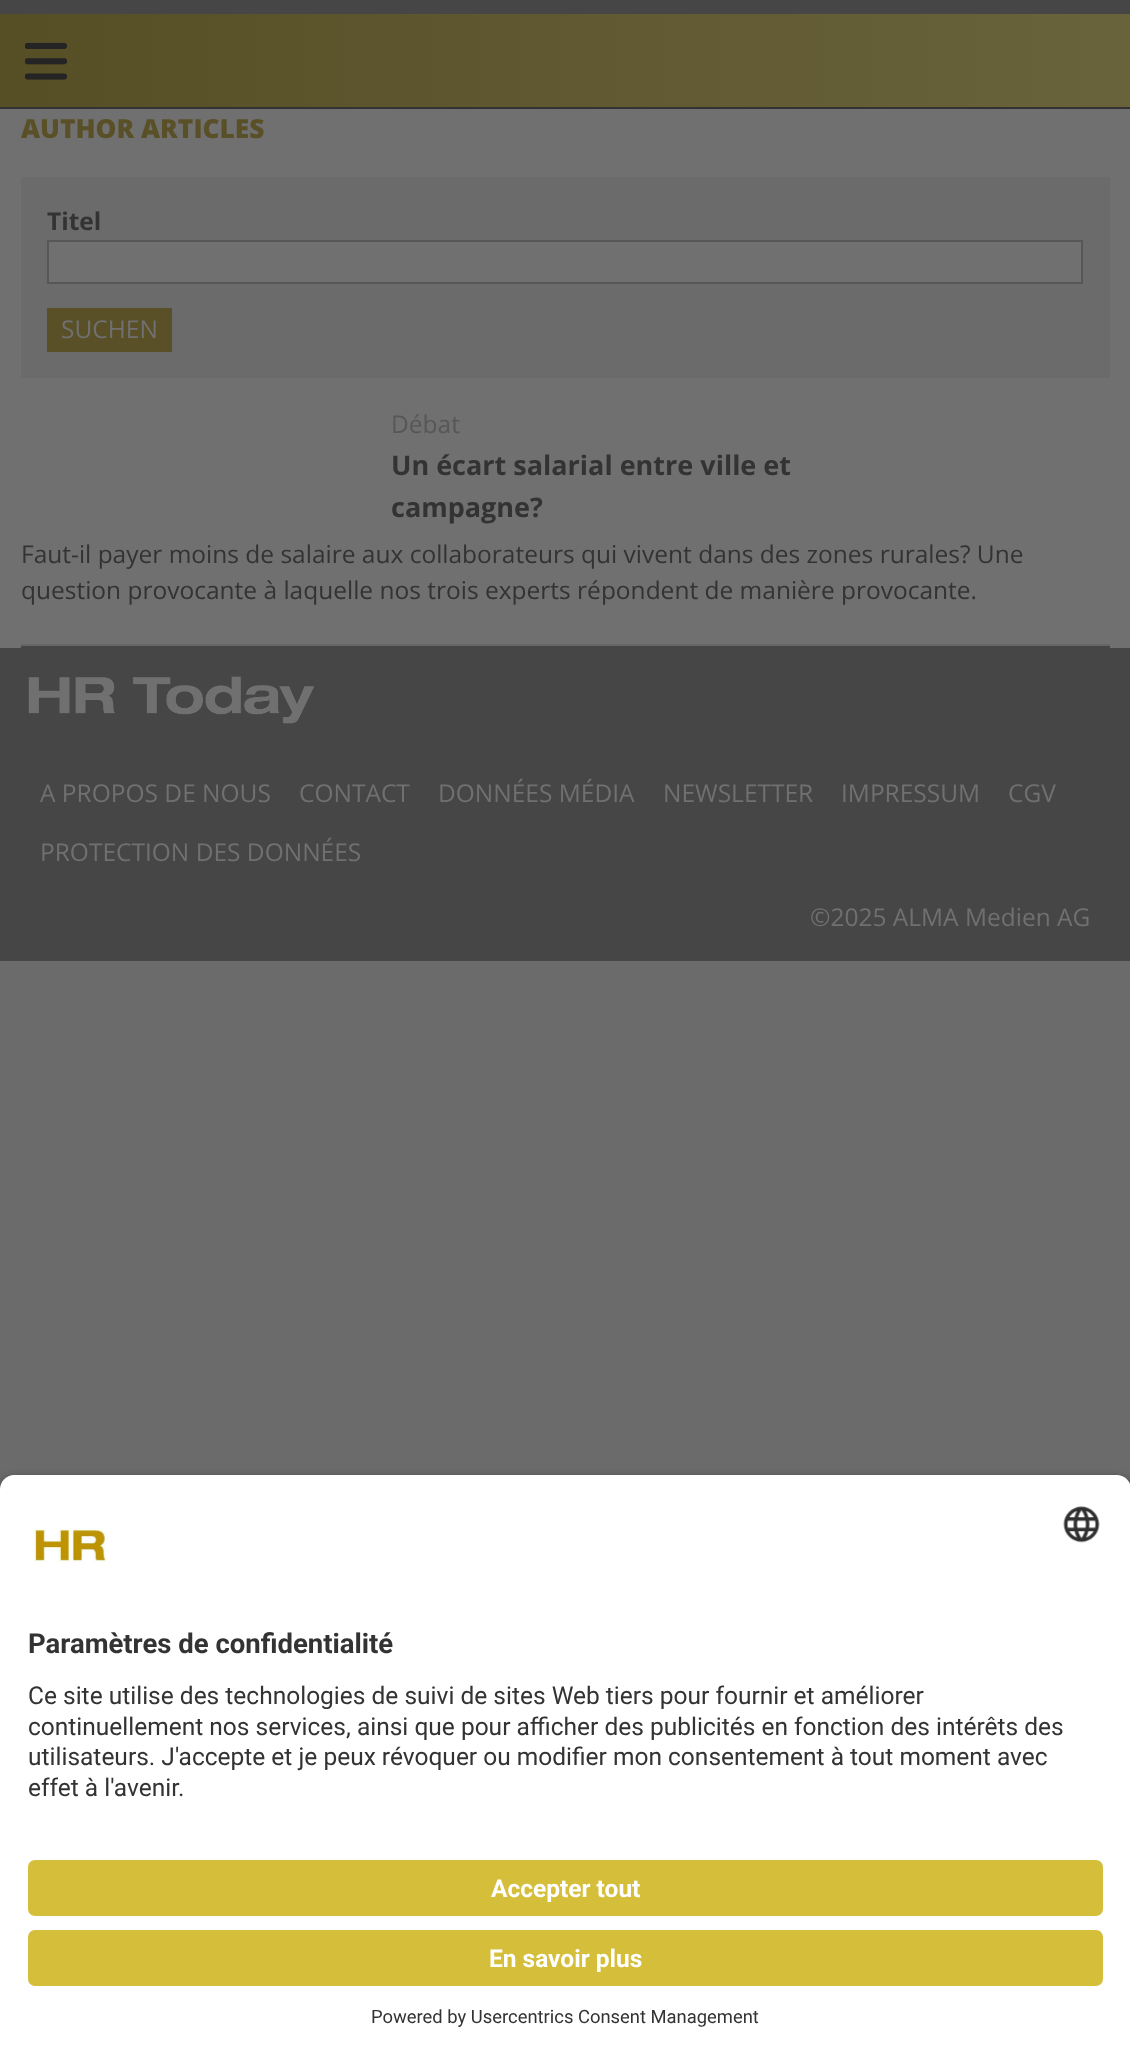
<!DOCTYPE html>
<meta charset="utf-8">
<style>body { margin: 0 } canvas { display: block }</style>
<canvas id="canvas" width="1130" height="2055"></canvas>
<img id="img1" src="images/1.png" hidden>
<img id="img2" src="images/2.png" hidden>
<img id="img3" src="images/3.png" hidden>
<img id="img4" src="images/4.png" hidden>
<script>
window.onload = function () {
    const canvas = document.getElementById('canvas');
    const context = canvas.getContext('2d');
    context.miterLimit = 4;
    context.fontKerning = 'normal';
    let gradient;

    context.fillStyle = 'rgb(107, 107, 107)';
    context.fillRect(0, 0, 1130, 2055);
    gradient = context.createLinearGradient(0, 60, 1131, 60);
    gradient.addColorStop(0, 'rgb(86, 78, 37)');
    gradient.addColorStop(1, 'rgb(105, 99, 60)');
    context.fillStyle = gradient;
    context.fillRect(0, 14, 1130, 93);
    context.fillStyle = 'rgb(70, 70, 70)';
    context.fillRect(0, 0, 1130, 14);
    context.drawImage(document.getElementById('img1'), 25, 42, 42, 38);
    context.fillStyle = 'rgb(112, 112, 112)';
    context.fillRect(0, 109, 1130, 539);
    context.fillStyle = 'rgb(51, 51, 51)';
    context.fillRect(0, 107, 1130, 2);
    context.fillStyle = 'rgb(70, 70, 70)';
    context.fillRect(21, 646, 1089, 2);
    context.fillStyle = 'rgb(107, 107, 107)';
    context.fillRect(21, 177, 1089, 201);
    context.fillStyle = 'rgb(112, 112, 112)';
    context.beginPath();
    context.rect(48, 241, 1034, 42);
    context.fill();
    context.strokeStyle = 'rgb(87, 87, 87)';
    context.lineWidth = 2;
    context.stroke();
    context.fillStyle = 'rgb(89, 80, 39)';
    context.fillRect(47, 308, 125, 44);
    context.fillStyle = 'rgb(102, 102, 102)';
    context.fillRect(21, 644, 1089, 2);
    context.fillStyle = 'rgb(70, 70, 70)';
    context.fillRect(0, 648, 1130, 313);
    context.drawImage(document.getElementById('img2'), 28, 676, 287, 48);
    context.fillStyle = 'rgba(0, 0, 0, 0.8)';
    context.filter = 'blur(6px)';
    context.beginPath();
    context.roundRect(0, 1481, 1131, 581, 14);
    context.fill();
    context.filter = 'none';
    context.fillStyle = 'rgb(255, 255, 255)';
    context.beginPath();
    context.moveTo(14, 1475);
    context.lineTo(1117, 1475);
    context.bezierCurveTo(1124.5, 1475, 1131, 1481.5, 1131, 1489);
    context.lineTo(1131, 1839);
    context.lineTo(0, 1839);
    context.lineTo(0, 1489);
    context.bezierCurveTo(0, 1481.5, 6.5, 1475, 14, 1475);
    context.closePath();
    context.fill();
    context.drawImage(document.getElementById('img3'), 34, 1528, 72, 35);
    context.drawImage(document.getElementById('img4'), 1063, 1506, 37, 37);
    context.fillRect(0, 1839, 1130, 216);
    context.fillStyle = 'rgb(212, 190, 58)';
    context.beginPath();
    context.roundRect(28, 1860, 1075, 56, 7);
    context.fill();
    context.beginPath();
    context.roundRect(28, 1930, 1075, 56, 7);
    context.fill();
    context.font = '800 26.25px Open Sans';
    context.fillStyle = 'rgb(89, 80, 39)';
    context.fillText('AUTHOR ARTICLES', 21, 138);
    context.font = 'bold 24.5px Open Sans';
    context.fillStyle = 'rgb(51, 51, 51)';
    context.fillText('Titel', 47, 230);
    context.font = '24.5px Open Sans';
    context.fillStyle = 'rgb(112, 112, 112)';
    context.fillText('SUCHEN', 61, 338);
    context.fillStyle = 'rgb(87, 87, 87)';
    context.fillText('Débat', 391, 433);
    context.font = 'bold 27px Open Sans';
    context.fillStyle = 'rgb(51, 51, 51)';
    context.fillText('Un écart salarial entre ville et', 391, 475);
    context.fillText('campagne?', 391, 517);
    context.font = '24.5px Open Sans';
    context.fillText('Faut-il payer moins de salaire aux collaborateurs qui vivent dans des zones rurales? Une', 21, 563);
    context.fillText('question provocante à laquelle nos trois experts répondent de manière provocante.', 21, 599);
    context.fillStyle = 'rgb(112, 112, 112)';
    context.fillText('A PROPOS DE NOUS', 40, 802);
    context.fillText('CONTACT', 299, 802);
    context.fillText('DONNÉES MÉDIA', 438, 802);
    context.fillText('NEWSLETTER', 663, 802);
    context.fillText('IMPRESSUM', 841, 802);
    context.fillText('CGV', 1008, 802);
    context.fillText('PROTECTION DES DONNÉES', 40, 861);
    context.fillText('©2025 ALMA Medien AG', 810, 926);
    context.font = 'bold 27.5px Roboto';
    context.fillStyle = 'rgb(51, 51, 51)';
    context.fillText('Paramètres de confidentialité', 28, 1653);
    context.font = '24.5px Roboto';
    context.fillText('Ce site utilise des technologies de suivi de sites Web tiers pour fournir et améliorer', 28, 1704);
    context.fillText('continuellement nos services, ainsi que pour afficher des publicités en fonction des intérêts des', 28, 1735);
    context.fillText('utilisateurs. J\'accepte et je peux révoquer ou modifier mon consentement à tout moment avec', 28, 1765);
    context.fillText('effet à l\'avenir.', 28, 1796);
    context.font = 'bold 24.5px Roboto';
    context.fillStyle = 'rgb(255, 255, 255)';
    context.fillText('Accepter tout', 491, 1897);
    context.fillText('En savoir plus', 489, 1967);
    context.font = '18.4px Roboto';
    context.fillStyle = 'rgb(51, 51, 51)';
    context.fillText('Powered by Usercentrics Consent Management', 371, 2023);
};
</script>
